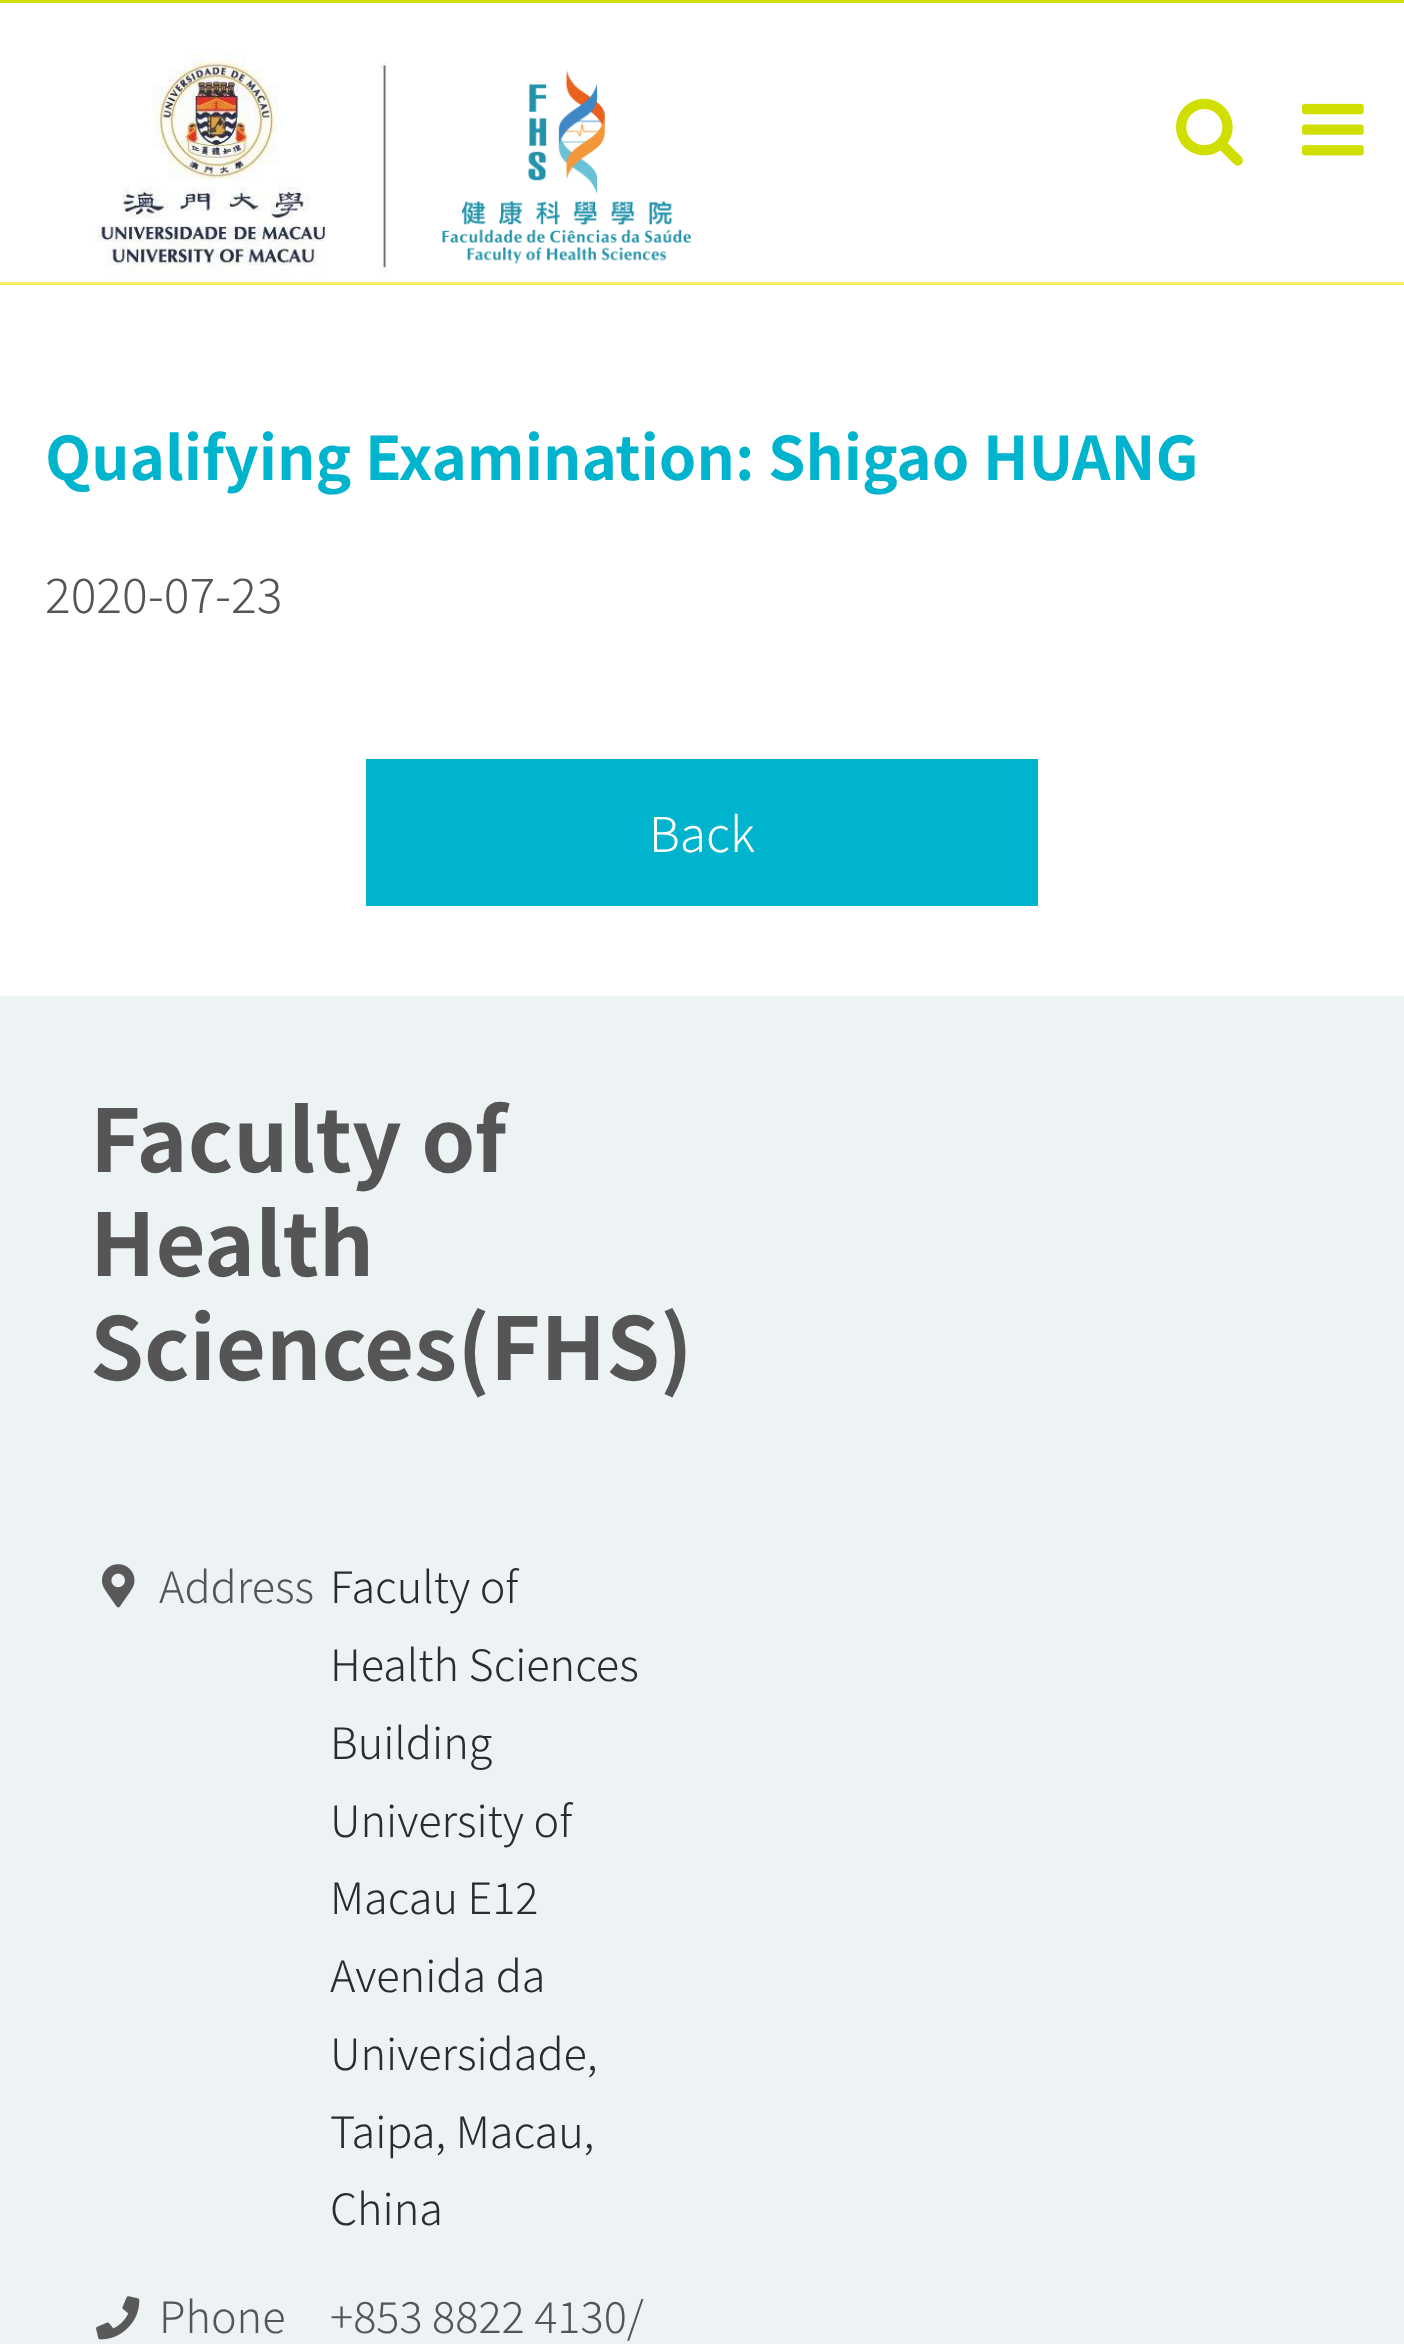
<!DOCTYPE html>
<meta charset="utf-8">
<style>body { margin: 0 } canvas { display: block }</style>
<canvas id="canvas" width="1404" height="2344"></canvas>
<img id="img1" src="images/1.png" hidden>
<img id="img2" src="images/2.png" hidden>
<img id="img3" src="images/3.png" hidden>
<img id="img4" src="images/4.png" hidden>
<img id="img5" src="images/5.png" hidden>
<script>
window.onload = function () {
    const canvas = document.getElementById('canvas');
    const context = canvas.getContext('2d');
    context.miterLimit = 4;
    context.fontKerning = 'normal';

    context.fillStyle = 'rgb(255, 255, 255)';
    context.fillRect(0, 0, 1404, 2344);
    context.fillStyle = 'rgb(208, 223, 0)';
    context.fillRect(0, 0, 1404, 3);
    context.fillStyle = 'rgb(246, 235, 97)';
    context.fillRect(0, 282, 1404, 3);
    context.drawImage(document.getElementById('img1'), 90, 54, 601, 219);
    context.drawImage(document.getElementById('img2'), 1176, 98, 67, 68);
    context.drawImage(document.getElementById('img3'), 1302, 103, 62, 53);
    context.fillStyle = 'rgb(0, 180, 206)';
    context.fillRect(366, 759, 672, 147);
    context.fillStyle = 'rgb(237, 242, 244)';
    context.fillRect(0, 996, 1404, 1348);
    context.drawImage(document.getElementById('img4'), 102, 1564, 33, 44);
    context.drawImage(document.getElementById('img5'), 96, 2296, 44, 44);
    context.font = 'bold 60px Noto Sans TC';
    context.fillStyle = 'rgb(0, 180, 206)';
    context.fillText('Qualifying Examination: Shigao HUANG', 45, 480);
    context.font = '300 48px Noto Sans TC';
    context.fillStyle = 'rgb(85, 85, 85)';
    context.fillText('2020-07-23', 45, 613);
    context.fillStyle = 'rgb(255, 255, 255)';
    context.fillText('Back', 649, 852);
    context.font = 'bold 86.5px Noto Sans TC';
    context.fillStyle = 'rgb(85, 85, 85)';
    context.fillText('Faculty of', 90, 1172);
    context.fillText('Health', 90, 1276);
    context.fillText('Sciences(FHS)', 90, 1380);
    context.font = '300 43.25px Noto Sans TC';
    context.fillText('Address', 159, 1603);
    context.fillStyle = 'rgb(43, 43, 43)';
    context.fillText('Faculty of', 330, 1603);
    context.fillText('Health Sciences', 330, 1681);
    context.fillText('Building', 330, 1759);
    context.fillText('University of', 330, 1837);
    context.fillText('Macau E12', 330, 1914);
    context.fillText('Avenida da', 330, 1992);
    context.fillText('Universidade,', 330, 2070);
    context.fillText('Taipa, Macau,', 330, 2148);
    context.fillText('China', 330, 2225);
    context.fillStyle = 'rgb(85, 85, 85)';
    context.fillText('Phone', 159, 2333);
    context.fillText('+853 8822 4130/', 330, 2333);
};
</script>
